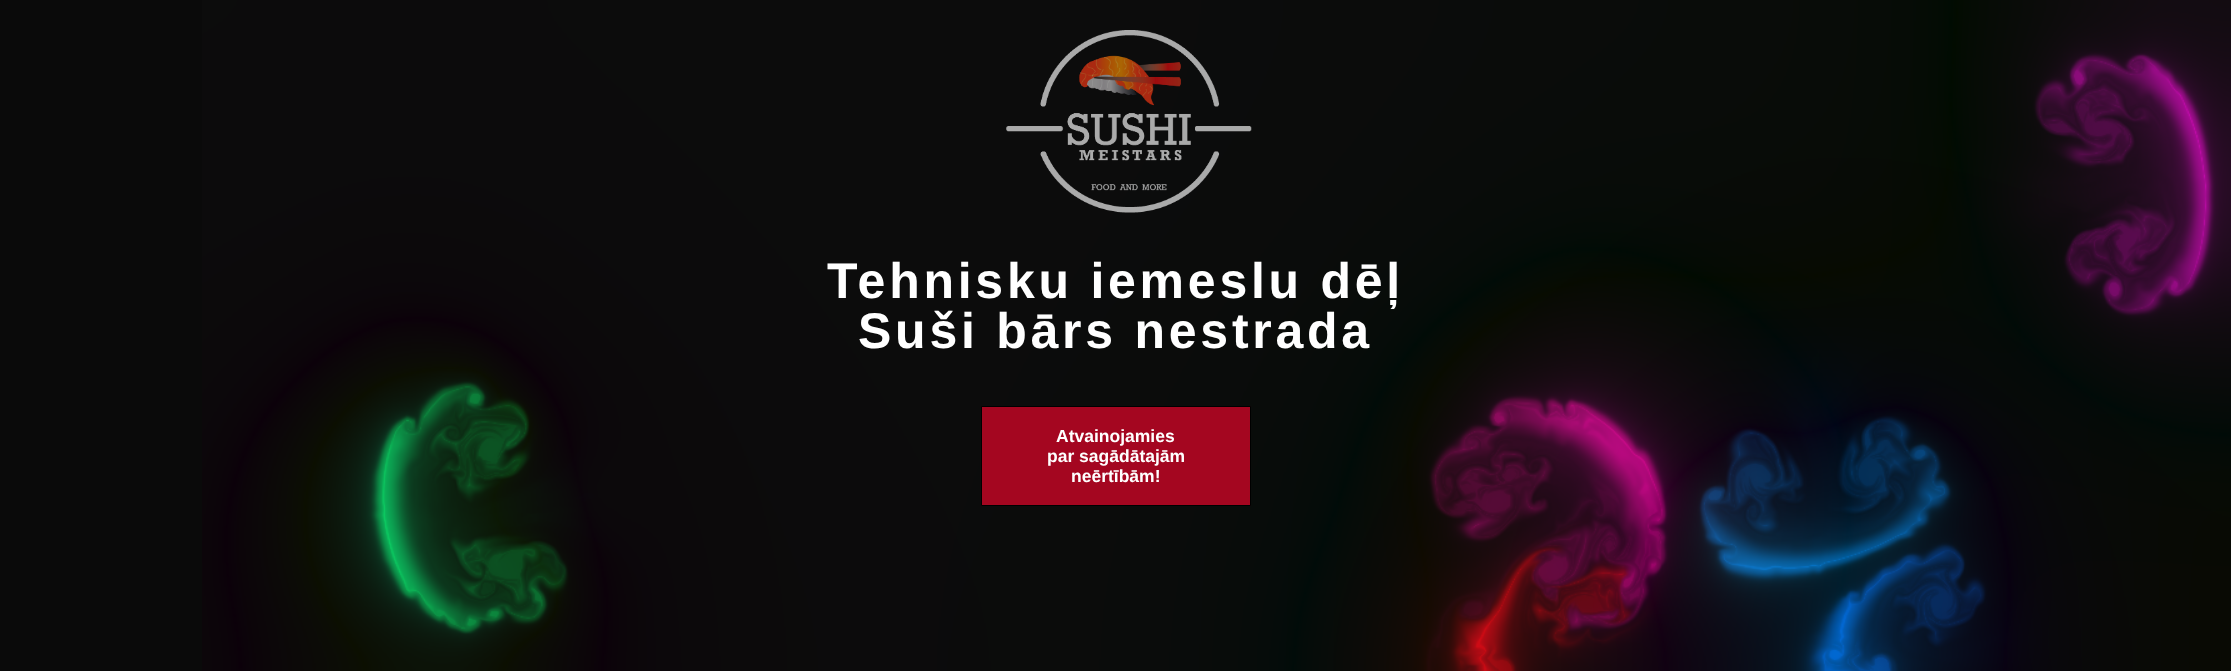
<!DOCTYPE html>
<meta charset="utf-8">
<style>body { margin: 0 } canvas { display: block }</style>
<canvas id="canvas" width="2231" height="671"></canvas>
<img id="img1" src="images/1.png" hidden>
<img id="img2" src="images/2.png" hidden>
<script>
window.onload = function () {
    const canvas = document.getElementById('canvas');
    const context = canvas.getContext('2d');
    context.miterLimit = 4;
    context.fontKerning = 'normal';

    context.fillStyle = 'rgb(10, 10, 10)';
    context.fillRect(0, 0, 2231, 671);
    context.drawImage(document.getElementById('img1'), 202, 0, 2029, 671);
    context.drawImage(document.getElementById('img2'), 1006, 30, 246, 183);
    context.fillStyle = 'rgb(164, 6, 32)';
    context.beginPath();
    context.rect(981.5, 406.5, 269, 99);
    context.fill();
    context.strokeStyle = 'rgb(0, 0, 0)';
    context.stroke();
    context.letterSpacing = '3.75px';
    context.font = 'bold 50px Liberation Sans';
    context.fillStyle = 'rgb(255, 255, 255)';
    context.fillText('Tehnisku iemeslu dēļ', 827, 298);
    context.fillText('Suši bārs nestrada', 858, 348);
    context.letterSpacing = '0px';
    context.font = 'bold 17.5px Liberation Sans';
    context.fillText('Atvainojamies', 1056, 442);
    context.fillText('par sagādātajām', 1047, 462);
    context.fillText('neērtībām!', 1071, 482);
};
</script>
